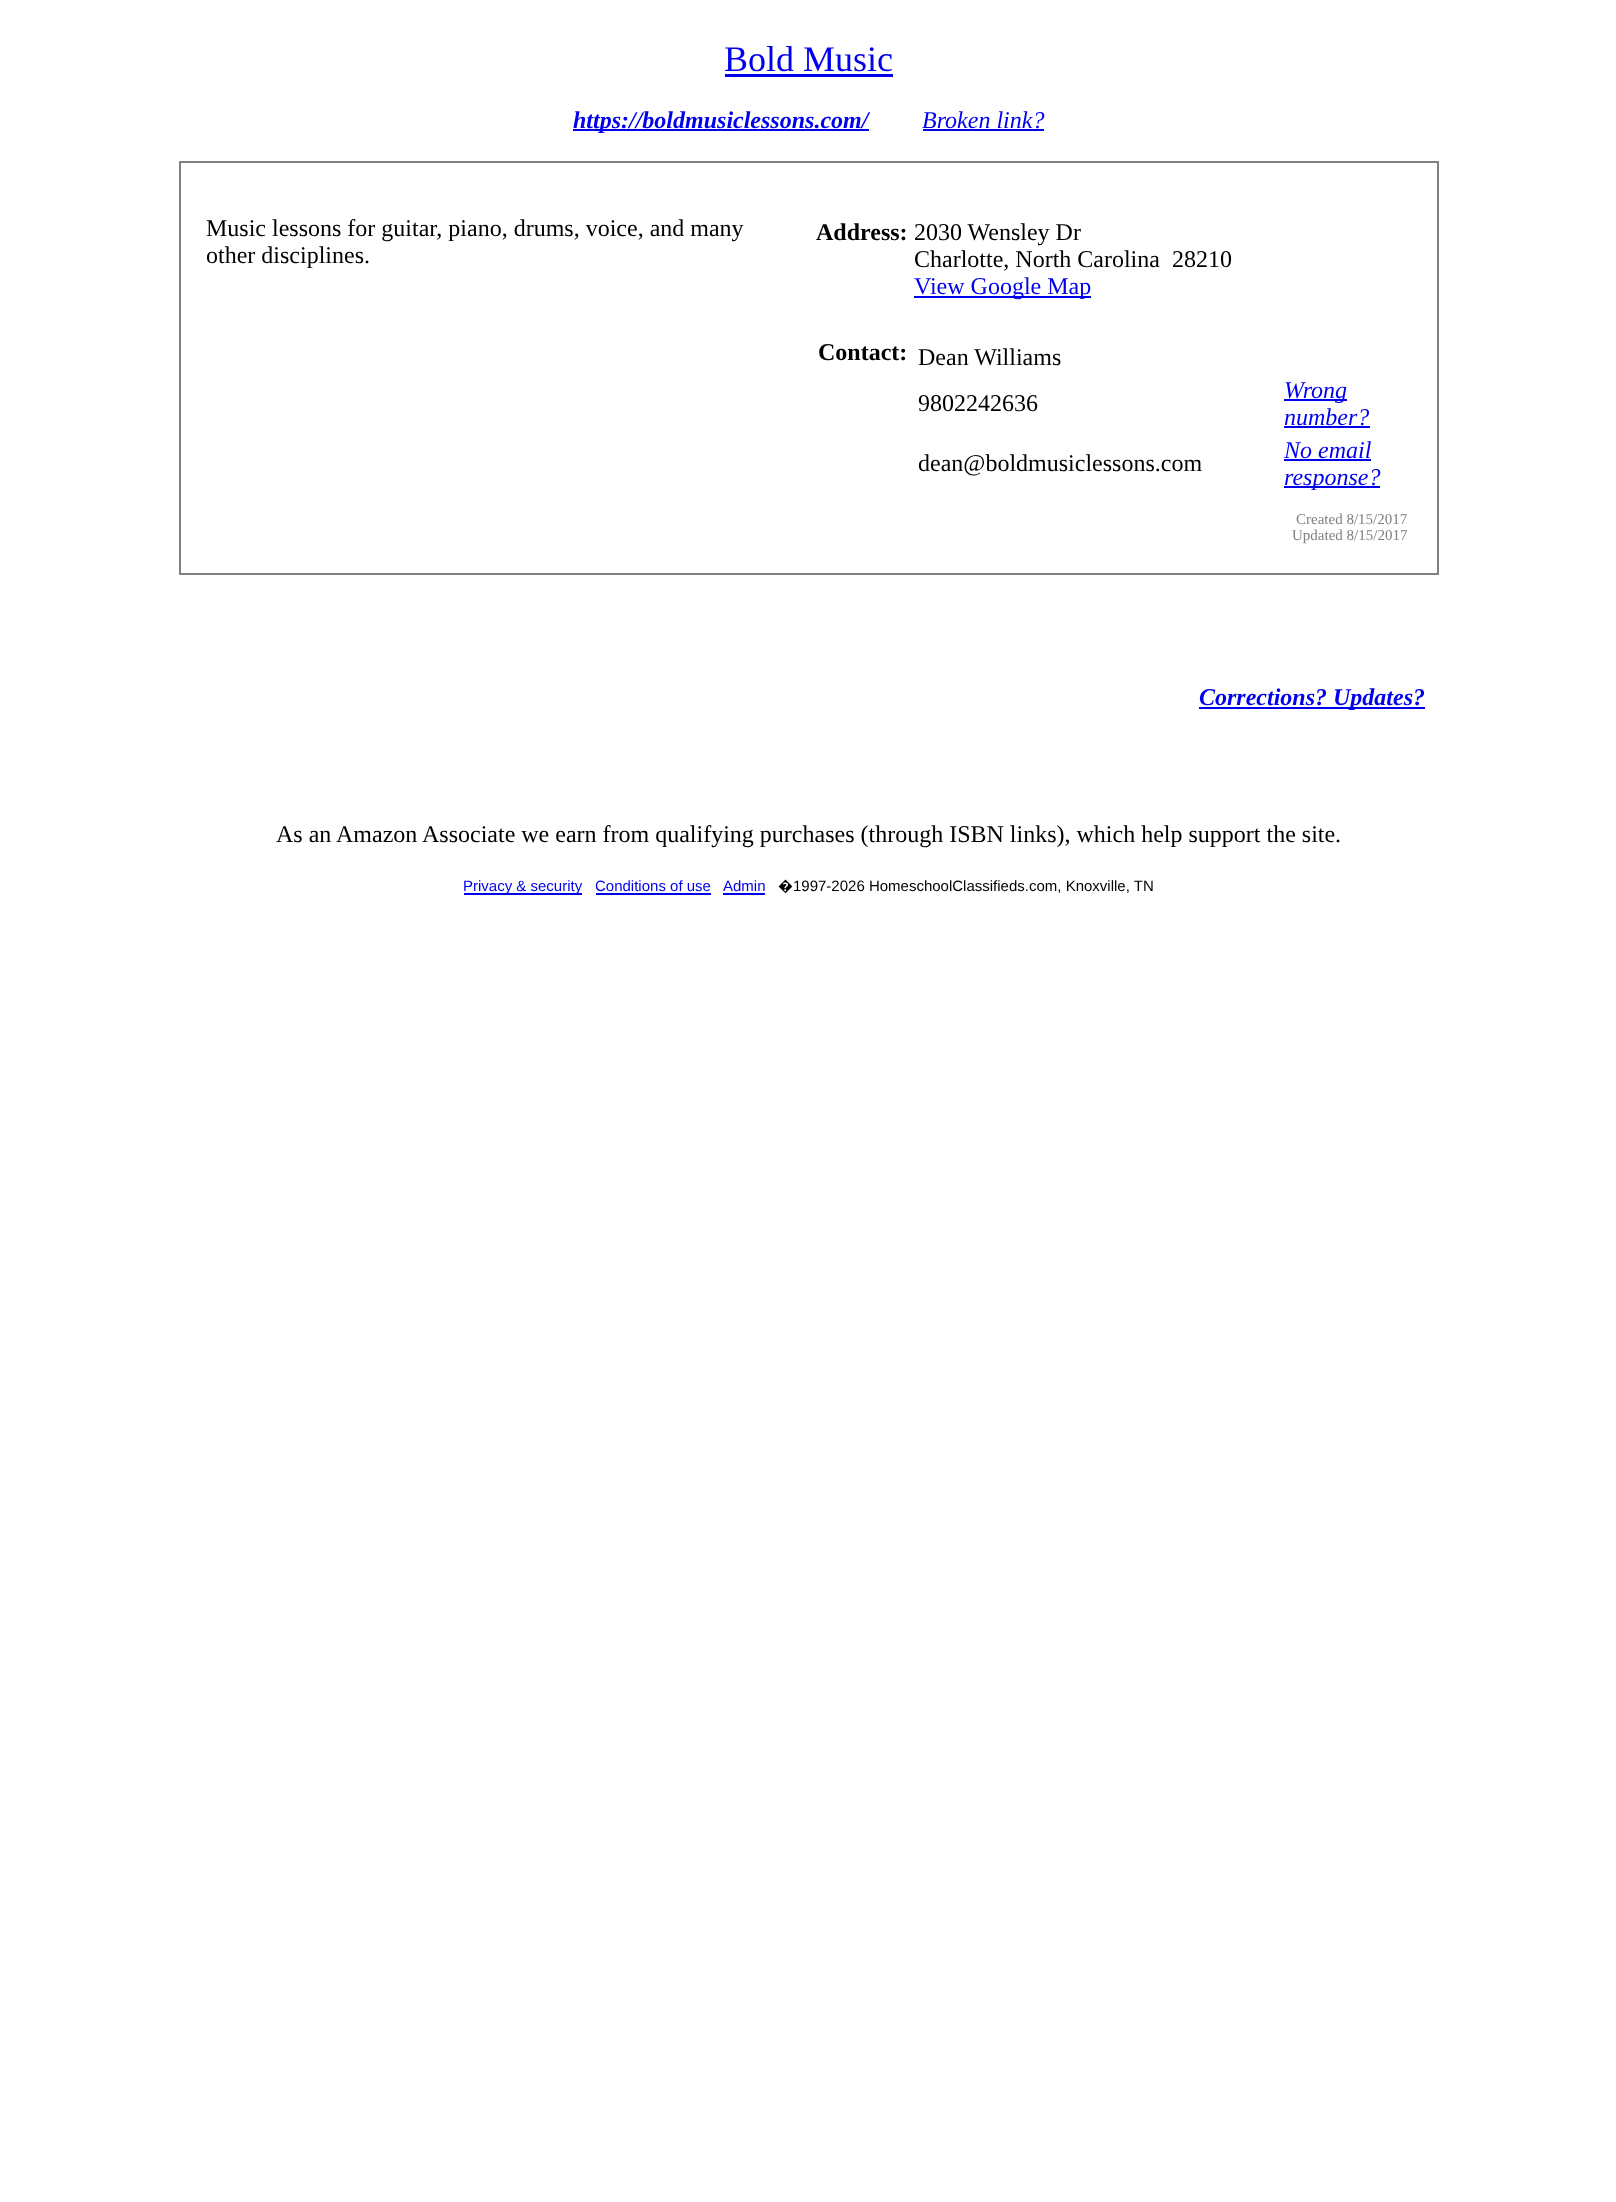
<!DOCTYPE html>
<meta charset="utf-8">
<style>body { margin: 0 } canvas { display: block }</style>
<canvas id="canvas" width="1616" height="2202"></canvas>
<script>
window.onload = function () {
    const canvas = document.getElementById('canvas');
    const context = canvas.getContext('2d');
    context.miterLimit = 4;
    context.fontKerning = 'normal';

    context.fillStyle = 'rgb(255, 255, 255)';
    context.fillRect(0, 0, 1616, 2202);
    context.fillStyle = 'rgb(0, 0, 238)';
    context.fillRect(725, 74, 168, 3);
    context.fillRect(573, 129, 296, 2);
    context.fillRect(923, 129, 121, 2);
    context.fillStyle = 'rgb(128, 128, 128)';
    context.fillRect(179, 161, 1260, 2);
    context.fillRect(1437, 161, 2, 414);
    context.fillRect(179, 573, 1260, 2);
    context.fillRect(179, 161, 2, 414);
    context.fillStyle = 'rgb(0, 0, 238)';
    context.fillRect(914, 296, 177, 2);
    context.fillRect(1284, 399, 63, 2);
    context.fillRect(1284, 426, 86, 2);
    context.fillRect(1284, 459, 87, 2);
    context.fillRect(1284, 486, 96, 2);
    context.fillRect(1199, 707, 226, 2);
    context.fillRect(464, 893, 118, 2);
    context.fillRect(596, 893, 115, 2);
    context.fillRect(723, 893, 42, 2);
    context.font = '36px Liberation Serif';
    context.fillText('Bold Music', 724, 71);
    context.font = 'italic bold 24px Liberation Serif';
    context.fillText('https://boldmusiclessons.com/', 573, 128);
    context.font = 'italic 24px Liberation Serif';
    context.fillText('Broken link?', 922, 128);
    context.font = '24px Liberation Serif';
    context.fillStyle = 'rgb(0, 0, 0)';
    context.fillText('Music lessons for guitar, piano, drums, voice, and many', 206, 236);
    context.fillText('other disciplines.', 206, 263);
    context.font = 'bold 24px Liberation Serif';
    context.fillText('Address:', 816, 240);
    context.font = '24px Liberation Serif';
    context.fillText('2030 Wensley Dr', 914, 240);
    context.fillText('Charlotte, North Carolina  28210', 914, 267);
    context.fillStyle = 'rgb(0, 0, 238)';
    context.fillText('View Google Map', 914, 294);
    context.font = 'bold 24px Liberation Serif';
    context.fillStyle = 'rgb(0, 0, 0)';
    context.fillText('Contact:', 818, 360);
    context.font = '24px Liberation Serif';
    context.fillText('Dean Williams', 918, 365);
    context.fillText('9802242636', 918, 411);
    context.font = 'italic 24px Liberation Serif';
    context.fillStyle = 'rgb(0, 0, 238)';
    context.fillText('Wrong', 1284, 398);
    context.fillText('number?', 1284, 425);
    context.font = '24px Liberation Serif';
    context.fillStyle = 'rgb(0, 0, 0)';
    context.fillText('dean@boldmusiclessons.com', 918, 471);
    context.font = 'italic 24px Liberation Serif';
    context.fillStyle = 'rgb(0, 0, 238)';
    context.fillText('No email', 1284, 458);
    context.fillText('response?', 1284, 485);
    context.font = '15px Liberation Serif';
    context.fillStyle = 'rgb(128, 128, 128)';
    context.fillText('Created 8/15/2017', 1296, 524);
    context.fillText('Updated 8/15/2017', 1292, 540);
    context.font = 'italic bold 24px Liberation Serif';
    context.fillStyle = 'rgb(0, 0, 238)';
    context.fillText('Corrections? Updates?', 1199, 705);
    context.font = '24px Liberation Serif';
    context.fillStyle = 'rgb(0, 0, 0)';
    context.fillText('As an Amazon Associate we earn from qualifying purchases (through ISBN links), which help support the site.', 276, 842);
    context.font = '15px Liberation Sans';
    context.fillStyle = 'rgb(0, 0, 238)';
    context.fillText('Privacy & security', 463, 891);
    context.fillText('Conditions of use', 595, 891);
    context.fillText('Admin', 723, 891);
    context.font = '15px Noto Sans';
    context.fillStyle = 'rgb(0, 0, 0)';
    context.fillText('�', 778, 891);
    context.font = '15px Liberation Sans';
    context.fillText('1997-2026 HomeschoolClassifieds.com, Knoxville, TN', 793, 891);
};
</script>
